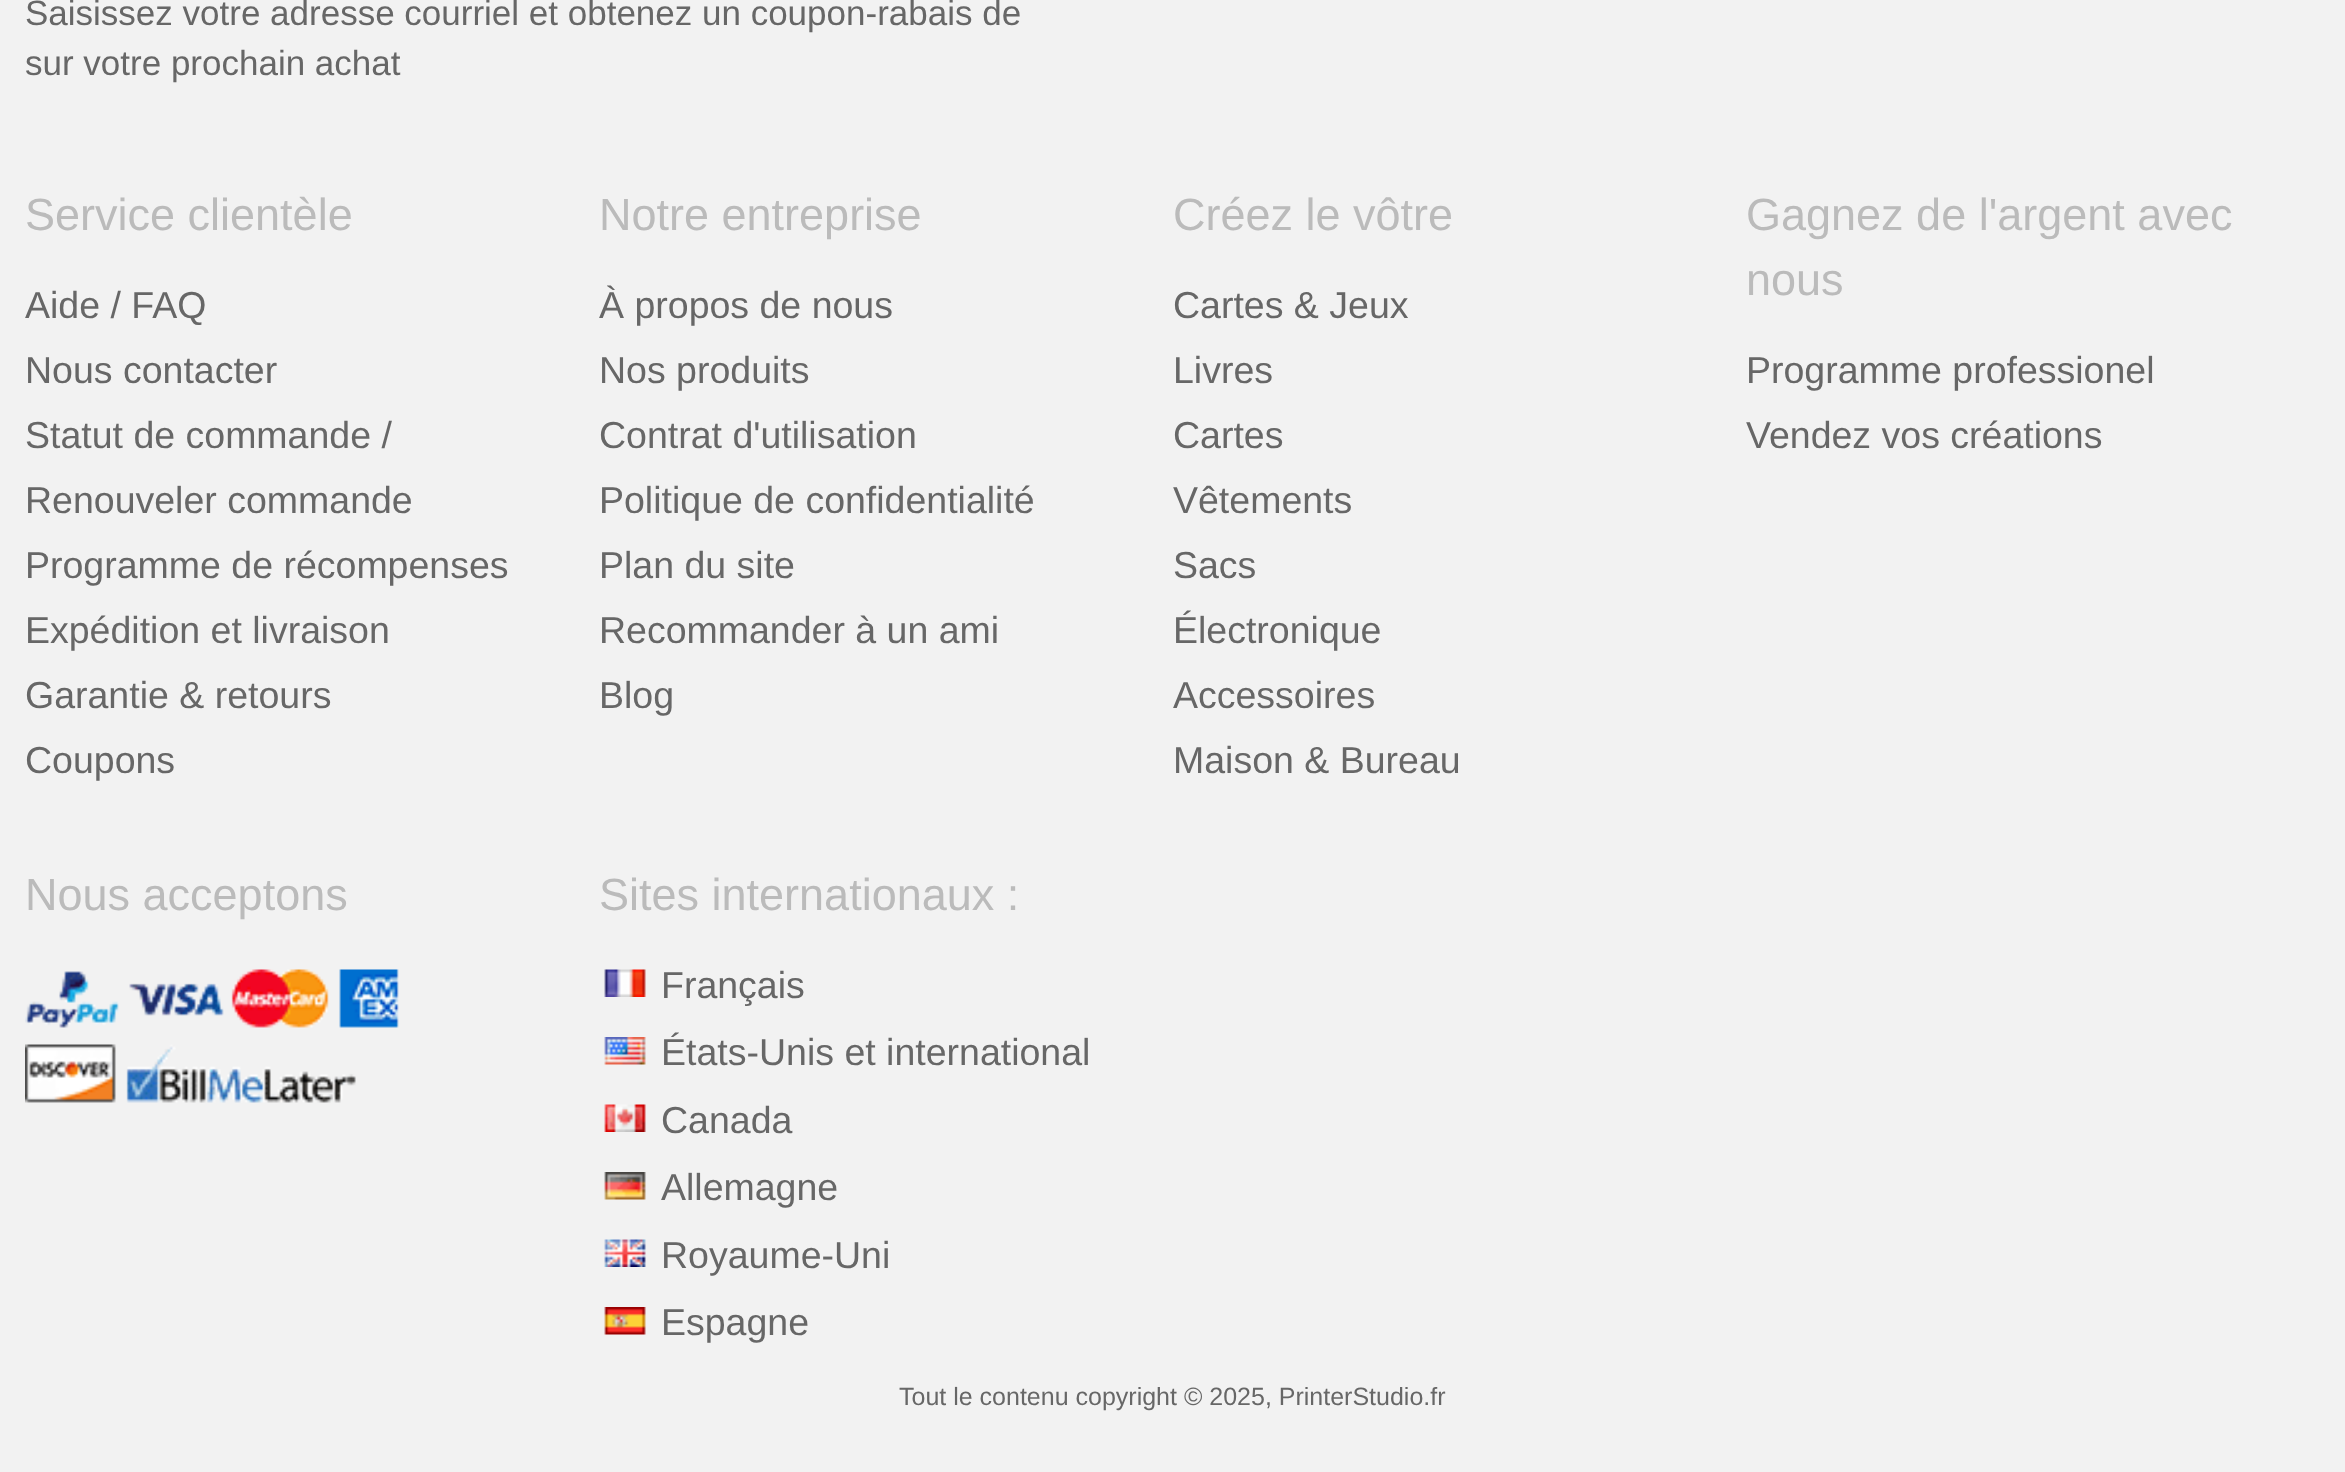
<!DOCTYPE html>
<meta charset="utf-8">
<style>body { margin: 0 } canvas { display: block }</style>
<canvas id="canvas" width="2345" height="1472"></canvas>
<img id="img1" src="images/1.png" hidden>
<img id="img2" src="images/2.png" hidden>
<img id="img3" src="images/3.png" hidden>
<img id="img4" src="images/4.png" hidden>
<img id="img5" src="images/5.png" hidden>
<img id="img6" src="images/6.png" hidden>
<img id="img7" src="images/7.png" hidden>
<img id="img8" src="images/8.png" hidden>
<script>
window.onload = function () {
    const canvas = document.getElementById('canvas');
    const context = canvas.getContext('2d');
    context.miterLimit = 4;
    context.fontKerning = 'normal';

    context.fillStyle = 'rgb(242, 242, 242)';
    context.fillRect(0, 0, 2345, 1472);
    context.drawImage(document.getElementById('img1'), 25, 969, 374, 59);
    context.drawImage(document.getElementById('img2'), 25, 1044, 331, 59);
    context.drawImage(document.getElementById('img3'), 604, 969, 42, 28);
    context.drawImage(document.getElementById('img4'), 604, 1037, 42, 28);
    context.drawImage(document.getElementById('img5'), 604, 1104, 42, 28);
    context.drawImage(document.getElementById('img6'), 604, 1172, 42, 28);
    context.drawImage(document.getElementById('img7'), 604, 1239, 42, 28);
    context.drawImage(document.getElementById('img8'), 604, 1307, 42, 28);
    context.font = '35px Liberation Sans';
    context.fillStyle = 'rgb(103, 103, 103)';
    context.fillText('Saisissez votre adresse courriel et obtenez un coupon-rabais de', 25, 25);
    context.fillText('sur votre prochain achat', 25, 75);
    context.font = '45px Liberation Sans';
    context.fillStyle = 'rgb(187, 187, 187)';
    context.fillText('Service clientèle', 25, 230);
    context.font = '37.5px Liberation Sans';
    context.fillStyle = 'rgb(103, 103, 103)';
    context.fillText('Aide / FAQ', 25, 318);
    context.fillText('Nous contacter', 25, 383);
    context.fillText('Statut de commande /', 25, 448);
    context.fillText('Renouveler commande', 25, 513);
    context.fillText('Programme de récompenses', 25, 578);
    context.fillText('Expédition et livraison', 25, 643);
    context.fillText('Garantie & retours', 25, 708);
    context.fillText('Coupons', 25, 773);
    context.font = '45px Liberation Sans';
    context.fillStyle = 'rgb(187, 187, 187)';
    context.fillText('Notre entreprise', 599, 230);
    context.font = '37.5px Liberation Sans';
    context.fillStyle = 'rgb(103, 103, 103)';
    context.fillText('À propos de nous', 599, 318);
    context.fillText('Nos produits', 599, 383);
    context.fillText('Contrat d\'utilisation', 599, 448);
    context.fillText('Politique de confidentialité', 599, 513);
    context.fillText('Plan du site', 599, 578);
    context.fillText('Recommander à un ami', 599, 643);
    context.fillText('Blog', 599, 708);
    context.font = '45px Liberation Sans';
    context.fillStyle = 'rgb(187, 187, 187)';
    context.fillText('Créez le vôtre', 1173, 230);
    context.font = '37.5px Liberation Sans';
    context.fillStyle = 'rgb(103, 103, 103)';
    context.fillText('Cartes & Jeux', 1173, 318);
    context.fillText('Livres', 1173, 383);
    context.fillText('Cartes', 1173, 448);
    context.fillText('Vêtements', 1173, 513);
    context.fillText('Sacs', 1173, 578);
    context.fillText('Électronique', 1173, 643);
    context.fillText('Accessoires', 1173, 708);
    context.fillText('Maison & Bureau', 1173, 773);
    context.font = '45px Liberation Sans';
    context.fillStyle = 'rgb(187, 187, 187)';
    context.fillText('Gagnez de l\'argent avec', 1746, 230);
    context.fillText('nous', 1746, 295);
    context.font = '37.5px Liberation Sans';
    context.fillStyle = 'rgb(103, 103, 103)';
    context.fillText('Programme professionel', 1746, 383);
    context.fillText('Vendez vos créations', 1746, 448);
    context.font = '45px Liberation Sans';
    context.fillStyle = 'rgb(187, 187, 187)';
    context.fillText('Nous acceptons', 25, 910);
    context.fillText('Sites internationaux :', 599, 910);
    context.font = '37.5px Liberation Sans';
    context.fillStyle = 'rgb(103, 103, 103)';
    context.fillText('Français', 661, 998);
    context.fillText('États-Unis et international', 661, 1065);
    context.fillText('Canada', 661, 1133);
    context.fillText('Allemagne', 661, 1200);
    context.fillText('Royaume-Uni', 661, 1268);
    context.fillText('Espagne', 661, 1335);
    context.font = '25px Liberation Sans';
    context.fillText('Tout le contenu copyright © 2025, PrinterStudio.fr', 899, 1405);
};
</script>
